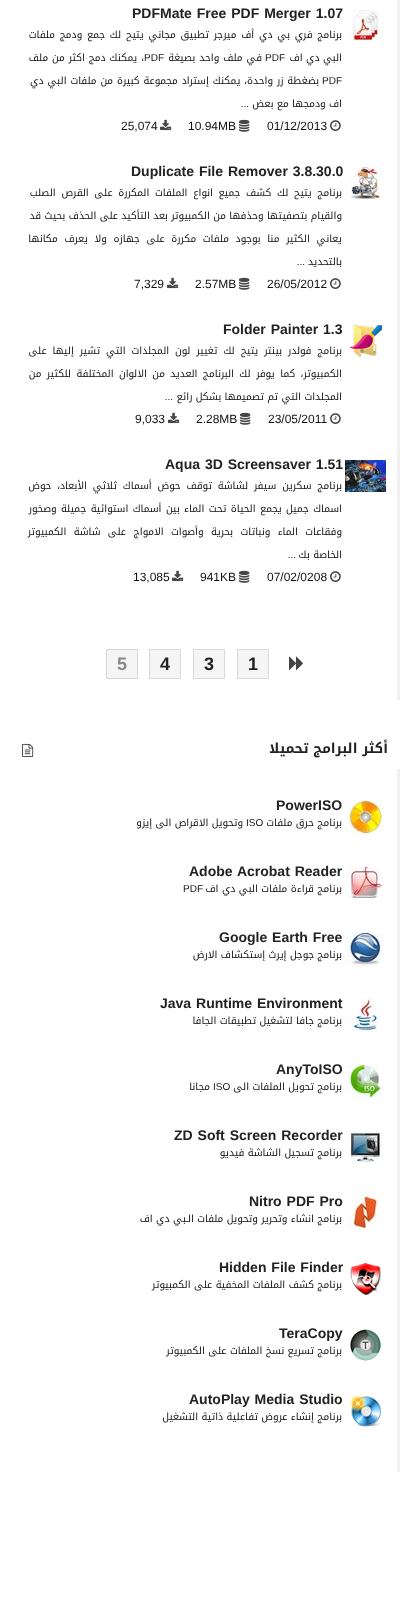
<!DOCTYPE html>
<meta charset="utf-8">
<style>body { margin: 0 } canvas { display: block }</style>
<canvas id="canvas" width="415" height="1616"></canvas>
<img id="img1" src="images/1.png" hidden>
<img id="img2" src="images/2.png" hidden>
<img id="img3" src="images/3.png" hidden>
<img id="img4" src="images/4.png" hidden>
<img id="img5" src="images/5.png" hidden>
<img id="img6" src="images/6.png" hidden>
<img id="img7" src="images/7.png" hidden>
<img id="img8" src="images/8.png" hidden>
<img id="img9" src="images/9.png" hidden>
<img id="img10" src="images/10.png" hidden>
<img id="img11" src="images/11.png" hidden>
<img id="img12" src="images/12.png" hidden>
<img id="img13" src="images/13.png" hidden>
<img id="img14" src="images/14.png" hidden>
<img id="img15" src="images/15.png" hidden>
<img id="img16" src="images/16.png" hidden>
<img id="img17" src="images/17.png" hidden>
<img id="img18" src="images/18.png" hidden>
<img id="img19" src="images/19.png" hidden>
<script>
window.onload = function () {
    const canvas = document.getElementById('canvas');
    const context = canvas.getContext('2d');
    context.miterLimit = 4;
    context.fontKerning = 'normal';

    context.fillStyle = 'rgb(255, 255, 255)';
    context.fillRect(0, 0, 415, 1616);
    context.fillStyle = 'rgb(240, 240, 240)';
    context.fillRect(397, 0, 3, 700);
    context.drawImage(document.getElementById('img1'), 345, 9, 35, 32);
    context.drawImage(document.getElementById('img2'), 330, 120, 11, 11);
    context.drawImage(document.getElementById('img3'), 239, 119, 11, 13);
    context.drawImage(document.getElementById('img4'), 160, 119, 12, 12);
    context.drawImage(document.getElementById('img5'), 345, 167, 37, 32);
    context.drawImage(document.getElementById('img2'), 330, 278, 11, 11);
    context.drawImage(document.getElementById('img3'), 239, 277, 11, 13);
    context.drawImage(document.getElementById('img4'), 167, 277, 12, 12);
    context.drawImage(document.getElementById('img6'), 350, 325, 32, 32);
    context.drawImage(document.getElementById('img2'), 330, 413, 11, 11);
    context.drawImage(document.getElementById('img3'), 240, 412, 11, 13);
    context.drawImage(document.getElementById('img4'), 168, 412, 12, 12);
    context.drawImage(document.getElementById('img7'), 345, 460, 41, 32);
    context.drawImage(document.getElementById('img2'), 330, 571, 11, 11);
    context.drawImage(document.getElementById('img3'), 239, 570, 11, 13);
    context.drawImage(document.getElementById('img4'), 172, 570, 12, 12);
    context.drawImage(document.getElementById('img8'), 289, 656, 14, 15);
    context.fillStyle = 'rgb(245, 245, 245)';
    context.beginPath();
    context.rect(237.5, 649.5, 31, 29);
    context.fill();
    context.strokeStyle = 'rgb(218, 218, 218)';
    context.stroke();
    context.beginPath();
    context.rect(193.5, 649.5, 31, 29);
    context.fill();
    context.stroke();
    context.beginPath();
    context.rect(149.5, 649.5, 31, 29);
    context.fill();
    context.stroke();
    context.beginPath();
    context.rect(106.5, 649.5, 31, 29);
    context.fill();
    context.strokeStyle = 'rgb(212, 212, 212)';
    context.stroke();
    context.drawImage(document.getElementById('img9'), 22, 743, 12, 14);
    context.fillStyle = 'rgb(240, 240, 240)';
    context.fillRect(397, 769, 3, 703);
    context.drawImage(document.getElementById('img10'), 345, 801, 41, 32);
    context.drawImage(document.getElementById('img11'), 345, 867, 40, 32);
    context.drawImage(document.getElementById('img12'), 345, 933, 41, 32);
    context.drawImage(document.getElementById('img13'), 345, 999, 36, 32);
    context.drawImage(document.getElementById('img14'), 345, 1065, 41, 32);
    context.drawImage(document.getElementById('img15'), 345, 1131, 40, 32);
    context.drawImage(document.getElementById('img16'), 345, 1197, 34, 32);
    context.drawImage(document.getElementById('img17'), 350, 1263, 31, 32);
    context.drawImage(document.getElementById('img18'), 350, 1329, 31, 32);
    context.drawImage(document.getElementById('img19'), 350, 1395, 32, 32);
    context.wordSpacing = '1px';
    context.font = 'bold 14px Liberation Sans';
    context.fillStyle = 'rgb(34, 34, 34)';
    context.fillText('PDFMate Free PDF Merger 1.07', 132, 18);
    context.wordSpacing = '1.4px';
    context.direction = 'rtl';
    context.font = '10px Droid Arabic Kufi';
    context.fillStyle = 'rgb(18, 18, 18)';
    context.fillText('برنامج فري بي دي أف ميرجر تطبيق مجاني يتيح لك جمع ودمج ملفات', 342, 38);
    context.wordSpacing = '0px';
    context.fillText('البي دي اف', 342, 61);
    context.direction = 'ltr';
    context.font = '10px Liberation Sans';
    context.fillText('PDF', 265, 61);
    context.wordSpacing = '0.5px';
    context.direction = 'rtl';
    context.font = '10px Droid Arabic Kufi';
    context.fillText('في ملف واحد بصيغة', 262, 61);
    context.wordSpacing = '0px';
    context.direction = 'ltr';
    context.font = '10px Liberation Sans';
    context.fillText('PDF', 144, 61);
    context.wordSpacing = '0.5px';
    context.direction = 'rtl';
    context.font = '10px Droid Arabic Kufi';
    context.fillText('، يمكنك دمج اكثر من ملف', 144, 61);
    context.wordSpacing = '0px';
    context.direction = 'ltr';
    context.font = '10px Liberation Sans';
    context.fillText('PDF', 322, 84);
    context.wordSpacing = '0.5px';
    context.direction = 'rtl';
    context.font = '10px Droid Arabic Kufi';
    context.fillText('بضغطة زر واحدة، يمكنك إستراد مجموعة كبيرة من ملفات البي دي', 319, 84);
    context.wordSpacing = '0px';
    context.fillText('اف ودمجها مع بعض', 342, 107);
    context.font = '10px Liberation Sans';
    context.fillText('...', 249, 107);
    context.direction = 'ltr';
    context.font = '12px Liberation Sans';
    context.fillText('01/12/2013', 267, 130);
    context.fillText('10.94MB', 188, 130);
    context.fillText('25,074', 121, 130);
    context.wordSpacing = '1px';
    context.font = 'bold 14px Liberation Sans';
    context.fillStyle = 'rgb(34, 34, 34)';
    context.fillText('Duplicate File Remover 3.8.30.0', 131, 176);
    context.wordSpacing = '2.25px';
    context.direction = 'rtl';
    context.font = '10px Droid Arabic Kufi';
    context.fillStyle = 'rgb(18, 18, 18)';
    context.fillText('برنامج يتيح لك كشف جميع انواع الملفات المكررة على القرص الصلب', 342, 196);
    context.wordSpacing = '0px';
    context.fillText('والقيام بتصفيتها وحذفها من الكمبيوتر بعد التأكيد على الحذف بحيث قد', 342, 219);
    context.wordSpacing = '3.25px';
    context.fillText('يعاني الكثير منا بوجود ملفات مكررة على جهازه ولا يعرف مكانها', 342, 242);
    context.wordSpacing = '0px';
    context.fillText('بالتحديد', 342, 265);
    context.font = '10px Liberation Sans';
    context.fillText('...', 305, 265);
    context.direction = 'ltr';
    context.font = '12px Liberation Sans';
    context.fillText('26/05/2012', 267, 288);
    context.fillText('2.57MB', 195, 288);
    context.fillText('7,329', 134, 288);
    context.wordSpacing = '1px';
    context.font = 'bold 14px Liberation Sans';
    context.fillStyle = 'rgb(34, 34, 34)';
    context.fillText('Folder Painter 1.3', 223, 334);
    context.wordSpacing = '2.5px';
    context.direction = 'rtl';
    context.font = '10px Droid Arabic Kufi';
    context.fillStyle = 'rgb(18, 18, 18)';
    context.fillText('برنامج فولدر بينتر يتيح لك تغيير لون المجلدات التي تشير إليها على', 342, 354);
    context.wordSpacing = '2px';
    context.fillText('الكمبيوتر، كما يوفر لك البرنامج العديد من الالوان المختلفة للكثير من', 342, 377);
    context.wordSpacing = '0px';
    context.fillText('المجلدات التي تم تصميمها بشكل رائع', 342, 400);
    context.font = '10px Liberation Sans';
    context.fillText('...', 173, 400);
    context.direction = 'ltr';
    context.font = '12px Liberation Sans';
    context.fillText('23/05/2011', 268, 423);
    context.fillText('2.28MB', 196, 423);
    context.fillText('9,033', 135, 423);
    context.wordSpacing = '1px';
    context.font = 'bold 14px Liberation Sans';
    context.fillStyle = 'rgb(34, 34, 34)';
    context.fillText('Aqua 3D Screensaver 1.51', 165, 469);
    context.wordSpacing = '2.5px';
    context.direction = 'rtl';
    context.font = '10px Droid Arabic Kufi';
    context.fillStyle = 'rgb(18, 18, 18)';
    context.fillText('برنامج سكرين سيفر لشاشة توقف حوض أسماك ثلاثي الأبعاد، حوض', 342, 489);
    context.wordSpacing = '1px';
    context.fillText('اسماك جميل يجمع الحياة تحت الماء بين أسماك استوائية جميلة وصخور', 342, 512);
    context.wordSpacing = '4px';
    context.fillText('وفقاعات الماء ونباتات بحرية وأصوات الامواج على شاشة الكمبيوتر', 342, 535);
    context.wordSpacing = '0px';
    context.fillText('الخاصة بك', 342, 558);
    context.font = '10px Liberation Sans';
    context.fillText('...', 296, 558);
    context.direction = 'ltr';
    context.font = '12px Liberation Sans';
    context.fillText('07/02/0208', 267, 581);
    context.fillText('941KB', 200, 581);
    context.fillText('13,085', 133, 581);
    context.font = 'bold 18px Liberation Sans';
    context.fillStyle = 'rgb(34, 34, 34)';
    context.fillText('1', 248, 670);
    context.fillText('3', 204, 670);
    context.fillText('4', 160, 670);
    context.fillStyle = 'rgb(136, 136, 136)';
    context.fillText('5', 117, 670);
    context.direction = 'rtl';
    context.font = 'bold 13.75px Noto Kufi Arabic';
    context.fillStyle = 'rgb(34, 34, 34)';
    context.fillText('أكثر البرامج تحميلا', 388, 753);
    context.direction = 'ltr';
    context.font = 'bold 14px Liberation Sans';
    context.fillText('PowerISO', 276, 810);
    context.direction = 'rtl';
    context.font = '10px Droid Arabic Kufi';
    context.fillStyle = 'rgb(18, 18, 18)';
    context.fillText('برنامج حرق ملفات', 342, 826);
    context.direction = 'ltr';
    context.font = '10px Liberation Sans';
    context.fillText('ISO', 246, 826);
    context.direction = 'rtl';
    context.font = '10px Droid Arabic Kufi';
    context.fillText('وتحويل الاقراص الى إيزو', 243, 826);
    context.wordSpacing = '1px';
    context.direction = 'ltr';
    context.font = 'bold 14px Liberation Sans';
    context.fillStyle = 'rgb(34, 34, 34)';
    context.fillText('Adobe Acrobat Reader', 189, 876);
    context.save();
    context.beginPath();
    context.rect(29, 881, 313, 15);
    context.clip();
    context.wordSpacing = '0px';
    context.direction = 'rtl';
    context.font = '10px Droid Arabic Kufi';
    context.fillStyle = 'rgb(18, 18, 18)';
    context.fillText('برنامج قراءة ملفات البي دي اف', 342, 892);
    context.restore();
    context.wordSpacing = '0px';
    context.font = '10px Liberation Sans';
    context.fillStyle = 'rgb(18, 18, 18)';
    context.fillText('PDF', 183, 892);
    context.wordSpacing = '1px';
    context.font = 'bold 14px Liberation Sans';
    context.fillStyle = 'rgb(34, 34, 34)';
    context.fillText('Google Earth Free', 219, 942);
    context.wordSpacing = '0px';
    context.direction = 'rtl';
    context.font = '10px Droid Arabic Kufi';
    context.fillStyle = 'rgb(18, 18, 18)';
    context.fillText('برنامج جوجل إيرث إستكشاف الارض', 342, 958);
    context.wordSpacing = '1px';
    context.direction = 'ltr';
    context.font = 'bold 14px Liberation Sans';
    context.fillStyle = 'rgb(34, 34, 34)';
    context.fillText('Java Runtime Environment', 160, 1008);
    context.wordSpacing = '0px';
    context.direction = 'rtl';
    context.font = '10px Droid Arabic Kufi';
    context.fillStyle = 'rgb(18, 18, 18)';
    context.fillText('برنامج جافا لتشغيل تطبيقات الجافا', 342, 1024);
    context.direction = 'ltr';
    context.font = 'bold 14px Liberation Sans';
    context.fillStyle = 'rgb(34, 34, 34)';
    context.fillText('AnyToISO', 276, 1074);
    context.direction = 'rtl';
    context.font = '10px Droid Arabic Kufi';
    context.fillStyle = 'rgb(18, 18, 18)';
    context.fillText('برنامج تحويل الملفات الى', 342, 1090);
    context.direction = 'ltr';
    context.font = '10px Liberation Sans';
    context.fillText('ISO', 213, 1090);
    context.direction = 'rtl';
    context.font = '10px Droid Arabic Kufi';
    context.fillText('مجانا', 210, 1090);
    context.wordSpacing = '1px';
    context.direction = 'ltr';
    context.font = 'bold 14px Liberation Sans';
    context.fillStyle = 'rgb(34, 34, 34)';
    context.fillText('ZD Soft Screen Recorder', 174, 1140);
    context.wordSpacing = '0px';
    context.direction = 'rtl';
    context.font = '10px Droid Arabic Kufi';
    context.fillStyle = 'rgb(18, 18, 18)';
    context.fillText('برنامج تسجيل الشاشة فيديو', 342, 1156);
    context.wordSpacing = '1px';
    context.direction = 'ltr';
    context.font = 'bold 14px Liberation Sans';
    context.fillStyle = 'rgb(34, 34, 34)';
    context.fillText('Nitro PDF Pro', 249, 1206);
    context.save();
    context.beginPath();
    context.rect(29, 1211, 313, 15);
    context.clip();
    context.wordSpacing = '0px';
    context.direction = 'rtl';
    context.font = '10px Droid Arabic Kufi';
    context.fillStyle = 'rgb(18, 18, 18)';
    context.fillText('برنامج انشاء وتحرير وتحويل ملفات الـبي دي اف', 342, 1222);
    context.restore();
    context.fillText('Hidden File Finder', 219, 1272);
    context.wordSpacing = '0px';
    context.direction = 'rtl';
    context.font = '10px Droid Arabic Kufi';
    context.fillStyle = 'rgb(18, 18, 18)';
    context.fillText('برنامج كشف الملفات المخفية على الكمبيوتر', 342, 1288);
    context.direction = 'ltr';
    context.font = 'bold 14px Liberation Sans';
    context.fillStyle = 'rgb(34, 34, 34)';
    context.fillText('TeraCopy', 279, 1338);
    context.direction = 'rtl';
    context.font = '10px Droid Arabic Kufi';
    context.fillStyle = 'rgb(18, 18, 18)';
    context.fillText('برنامج تسريع نسخ الملفات على الكمبيوتر', 342, 1354);
    context.wordSpacing = '1px';
    context.direction = 'ltr';
    context.font = 'bold 14px Liberation Sans';
    context.fillStyle = 'rgb(34, 34, 34)';
    context.fillText('AutoPlay Media Studio', 189, 1404);
    context.wordSpacing = '0px';
    context.direction = 'rtl';
    context.font = '10px Droid Arabic Kufi';
    context.fillStyle = 'rgb(18, 18, 18)';
    context.fillText('برنامج إنشاء عروض تفاعلية ذاتية التشغيل', 342, 1420);
};
</script>
